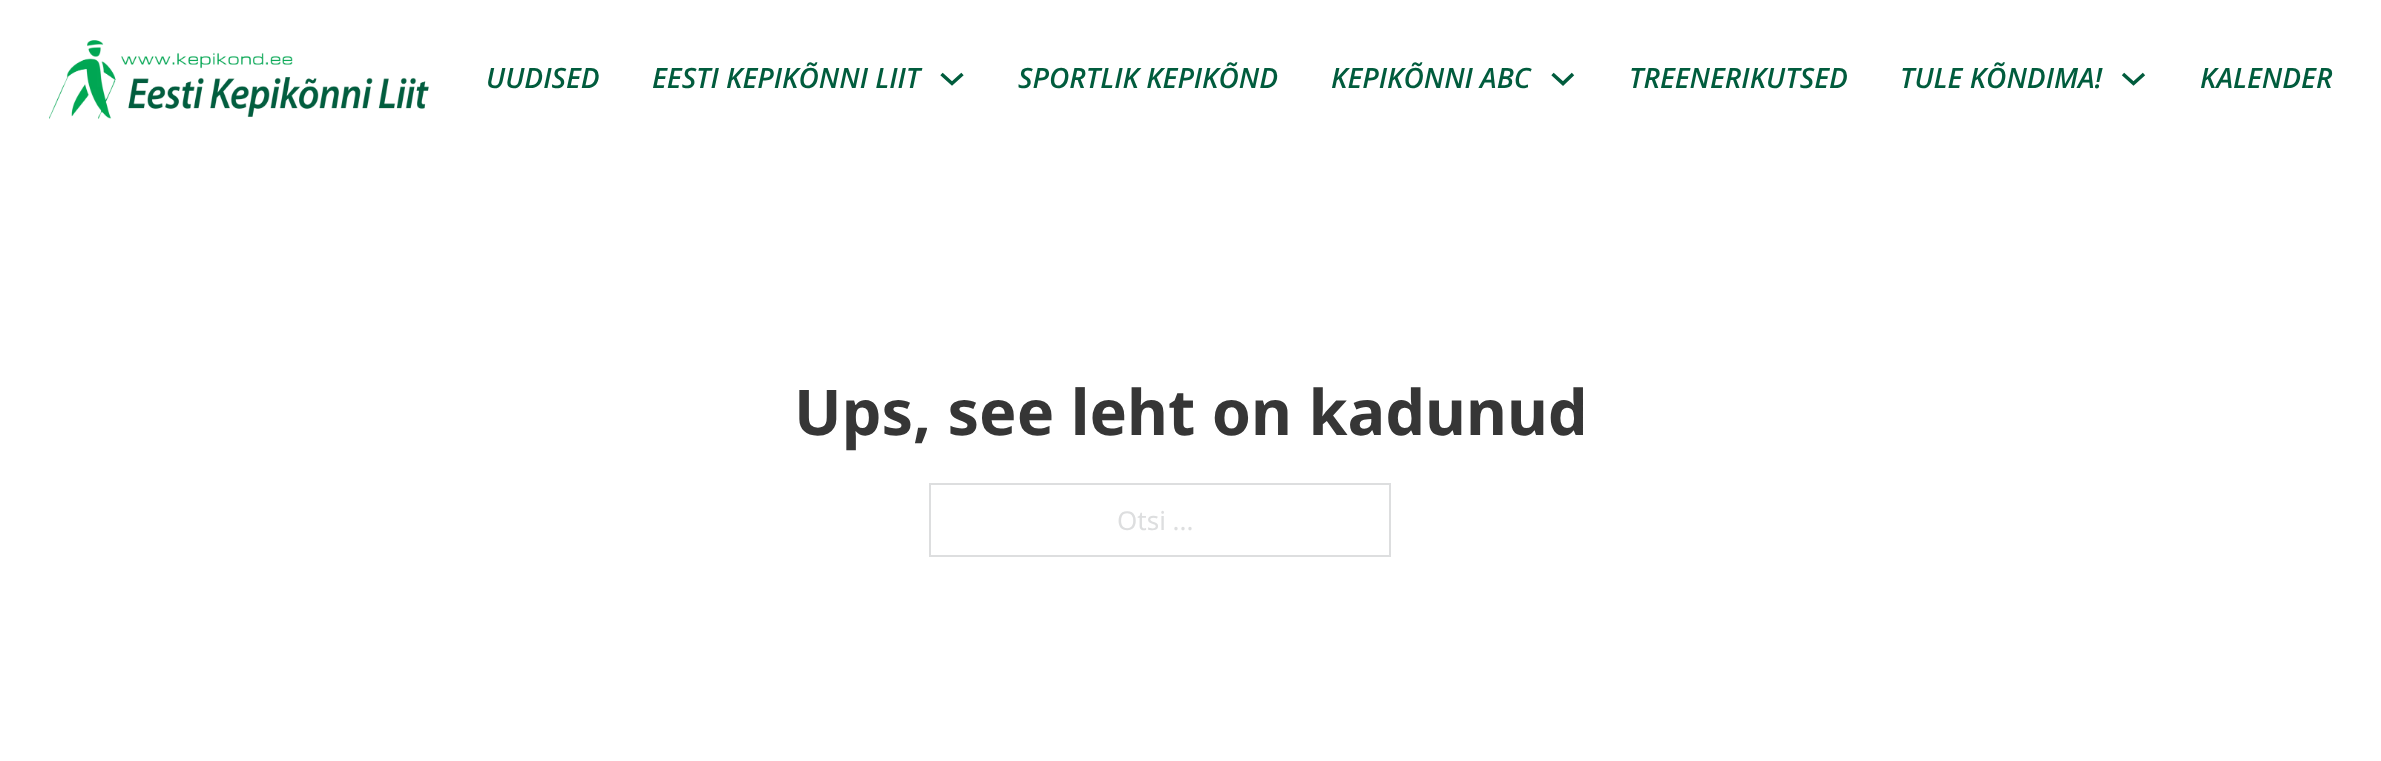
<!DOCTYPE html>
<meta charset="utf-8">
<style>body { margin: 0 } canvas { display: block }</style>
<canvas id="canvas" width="2381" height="761"></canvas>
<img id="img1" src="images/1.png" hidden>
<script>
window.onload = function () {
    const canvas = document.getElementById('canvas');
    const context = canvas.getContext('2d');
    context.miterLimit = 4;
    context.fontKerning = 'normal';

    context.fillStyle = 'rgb(255, 255, 255)';
    context.fillRect(0, 0, 2381, 761);
    context.drawImage(document.getElementById('img1'), 49, 40, 380, 79);
    context.beginPath();
    context.moveTo(941.5, 74);
    context.lineTo(952, 83.5);
    context.lineTo(962.5, 74);
    context.strokeStyle = 'rgb(1, 92, 61)';
    context.lineWidth = 3.5;
    context.stroke();
    context.beginPath();
    context.moveTo(1552.5, 74);
    context.lineTo(1563, 83.5);
    context.lineTo(1573, 74);
    context.stroke();
    context.beginPath();
    context.moveTo(2123, 74);
    context.lineTo(2133.5, 83.5);
    context.lineTo(2144, 74);
    context.stroke();
    context.strokeStyle = 'rgb(221, 222, 223)';
    context.lineWidth = 2;
    context.strokeRect(930, 484, 460, 72);
    context.font = 'italic 600 28px Open Sans';
    context.fillStyle = 'rgb(1, 92, 61)';
    context.fillText('UUDISED', 486, 88);
    context.fillText('EESTI KEPIKÕNNI LIIT', 652, 88);
    context.fillText('SPORTLIK KEPIKÕND', 1018, 88);
    context.fillText('KEPIKÕNNI ABC', 1331, 88);
    context.fillText('TREENERIKUTSED', 1629, 88);
    context.fillText('TULE KÕNDIMA!', 1900, 88);
    context.fillText('KALENDER', 2200, 88);
    context.font = 'bold 63px Noto Sans';
    context.fillStyle = 'rgb(54, 54, 54)';
    context.fillText('Ups, see leht on kadunud', 794, 435);
    context.font = '26px Noto Sans';
    context.fillStyle = 'rgb(221, 222, 223)';
    context.fillText('Otsi ...', 1117, 530);
};
</script>
